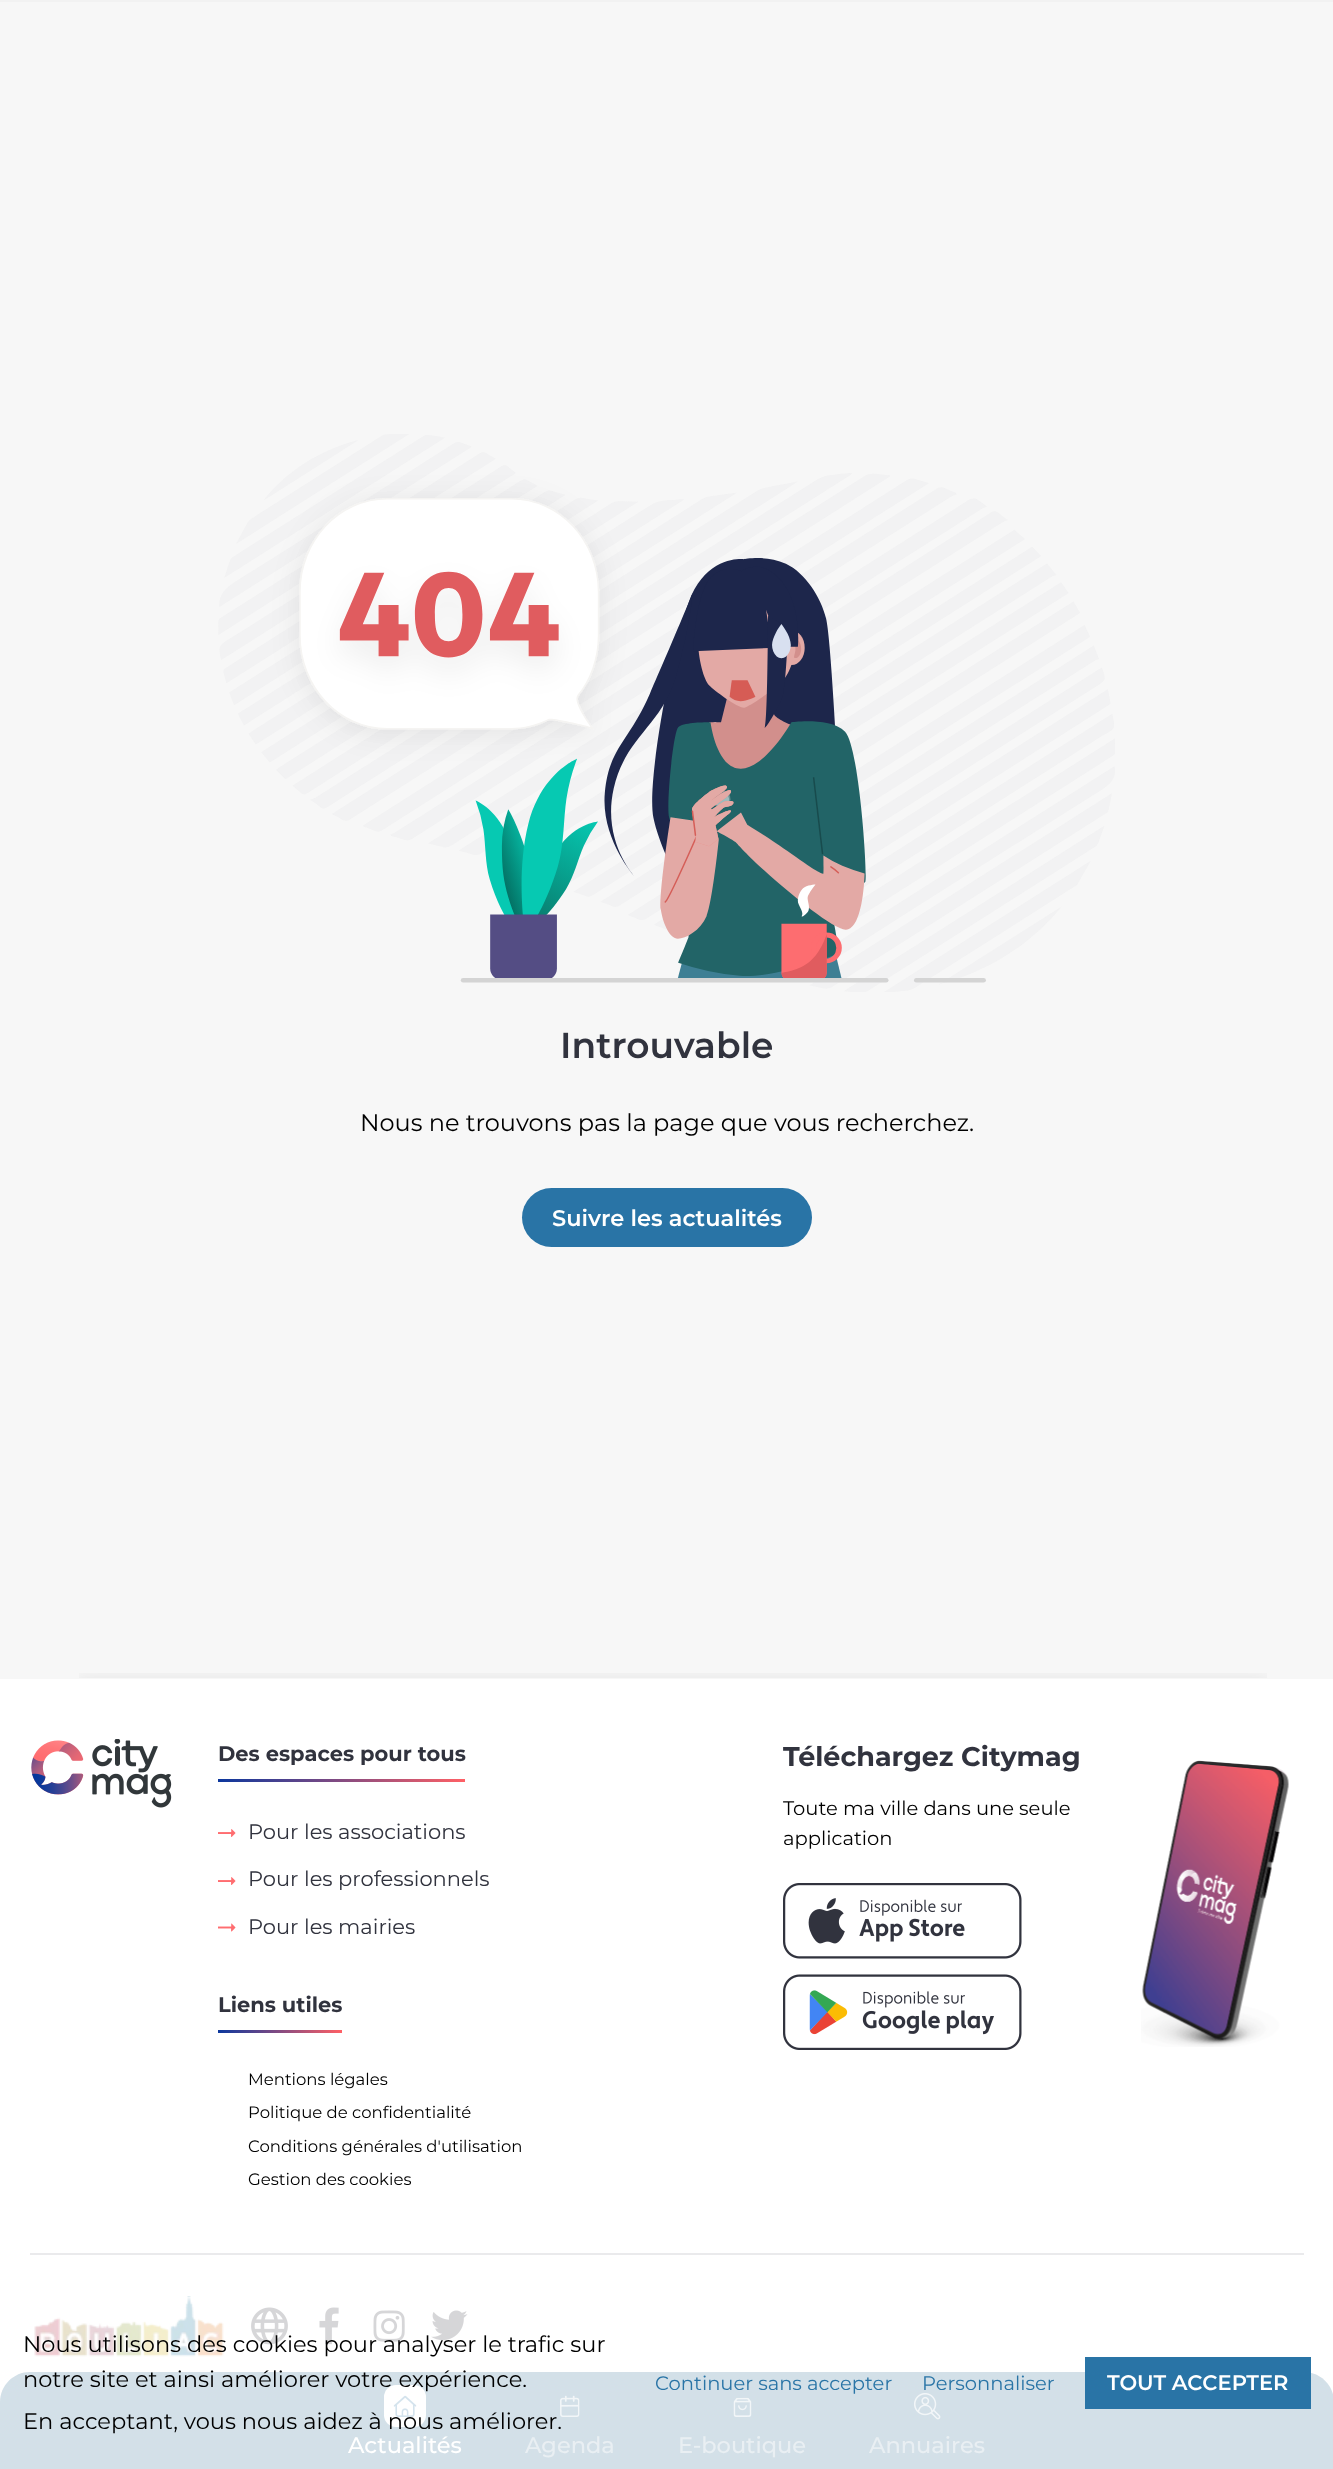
<!DOCTYPE html>
<meta charset="utf-8">
<style>body { margin: 0 } canvas { display: block }</style>
<canvas id="canvas" width="1333" height="2469"></canvas>
<img id="img1" src="images/1.png" hidden>
<img id="img2" src="images/2.png" hidden>
<img id="img3" src="images/3.png" hidden>
<img id="img4" src="images/4.png" hidden>
<img id="img5" src="images/5.png" hidden>
<img id="img6" src="images/6.png" hidden>
<img id="img7" src="images/7.png" hidden>
<img id="img8" src="images/8.png" hidden>
<img id="img9" src="images/9.png" hidden>
<img id="img10" src="images/10.png" hidden>
<img id="img11" src="images/11.png" hidden>
<img id="img12" src="images/12.png" hidden>
<img id="img13" src="images/13.png" hidden>
<img id="img14" src="images/14.png" hidden>
<img id="img15" src="images/15.png" hidden>
<img id="img16" src="images/16.png" hidden>
<img id="img17" src="images/17.png" hidden>
<script>
window.onload = function () {
    const canvas = document.getElementById('canvas');
    const context = canvas.getContext('2d');
    context.miterLimit = 4;
    context.fontKerning = 'normal';
    let gradient;

    context.fillStyle = 'rgb(255, 255, 255)';
    context.fillRect(0, 0, 1333, 2469);
    context.fillStyle = 'rgb(242, 242, 242)';
    context.fillRect(0, 0, 1333, 2);
    context.fillStyle = 'rgb(247, 247, 247)';
    context.fillRect(0, 2, 1333, 1677);
    context.drawImage(document.getElementById('img1'), 218, 434, 897, 558);
    context.fillStyle = 'rgb(41, 116, 166)';
    context.beginPath();
    context.roundRect(522, 1188, 290, 59, 29.5);
    context.fill();
    context.drawImage(document.getElementById('img2'), 79, 1673, 1188, 5);
    context.drawImage(document.getElementById('img3'), 31, 1739, 141, 69);
    gradient = context.createLinearGradient(465, 1781, 218, 1781);
    gradient.addColorStop(0, 'rgb(255, 96, 101)');
    gradient.addColorStop(1, 'rgb(12, 55, 157)');
    context.fillStyle = gradient;
    context.fillRect(218, 1779, 247, 3);
    context.drawImage(document.getElementById('img4'), 218, 1829, 18, 8);
    context.drawImage(document.getElementById('img4'), 218, 1877, 18, 8);
    context.drawImage(document.getElementById('img5'), 218, 1923, 18, 9);
    gradient = context.createLinearGradient(342, 2031, 218, 2031);
    gradient.addColorStop(0, 'rgb(255, 96, 101)');
    gradient.addColorStop(1, 'rgb(12, 55, 157)');
    context.fillStyle = gradient;
    context.fillRect(218, 2030, 124, 3);
    context.drawImage(document.getElementById('img6'), 783, 1883, 239, 76);
    context.drawImage(document.getElementById('img7'), 783, 1974, 239, 76);
    context.drawImage(document.getElementById('img8'), 1141, 1760, 148, 287);
    context.fillStyle = 'rgb(234, 234, 236)';
    context.fillRect(30, 2253, 1274, 2);
    context.drawImage(document.getElementById('img9'), 34, 2296, 190, 61);
    context.drawImage(document.getElementById('img10'), 251, 2307, 37, 38);
    context.drawImage(document.getElementById('img11'), 319, 2307, 20, 38);
    context.drawImage(document.getElementById('img12'), 373, 2310, 32, 32);
    context.drawImage(document.getElementById('img13'), 431, 2310, 37, 31);
    context.fillStyle = 'rgb(211, 224, 232)';
    context.beginPath();
    context.moveTo(30, 2372);
    context.lineTo(1304, 2372);
    context.bezierCurveTo(1320.5, 2372, 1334, 2385.5, 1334, 2402);
    context.lineTo(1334, 2469);
    context.lineTo(0, 2469);
    context.lineTo(0, 2402);
    context.bezierCurveTo(0, 2385.5, 13.5, 2372, 30, 2372);
    context.closePath();
    context.fill();
    context.fillStyle = 'rgb(255, 255, 255)';
    context.beginPath();
    context.roundRect(384, 2385, 42, 42, 12);
    context.fill();
    context.drawImage(document.getElementById('img14'), 393, 2395, 24, 22);
    context.drawImage(document.getElementById('img15'), 560, 2395, 20, 22);
    context.drawImage(document.getElementById('img16'), 733, 2397, 19, 20);
    context.drawImage(document.getElementById('img17'), 914, 2393, 27, 27);
    context.fillStyle = 'rgb(41, 116, 166)';
    context.fillRect(1085, 2357, 226, 52);
    context.font = '600 36px Montserrat';
    context.fillStyle = 'rgb(49, 51, 62)';
    context.fillText('Introuvable', 560, 1058);
    context.font = '24px Montserrat';
    context.fillStyle = 'rgb(0, 0, 0)';
    context.fillText('Nous ne trouvons pas la page que vous recherchez.', 360, 1131);
    context.font = '600 22.5px Montserrat';
    context.fillStyle = 'rgb(255, 255, 255)';
    context.fillText('Suivre les actualités', 552, 1226);
    context.font = 'bold 21px Montserrat';
    context.fillStyle = 'rgb(49, 51, 62)';
    context.fillText('Des espaces pour tous', 218, 1761);
    context.font = '21px Montserrat';
    context.fillText('Pour les associations', 248, 1839);
    context.fillText('Pour les professionnels', 248, 1886);
    context.fillText('Pour les mairies', 248, 1934);
    context.font = 'bold 21px Montserrat';
    context.fillText('Liens utiles', 218, 2012);
    context.font = '16.5px Montserrat';
    context.fillStyle = 'rgb(0, 0, 0)';
    context.fillText('Mentions légales', 248, 2085);
    context.fillText('Politique de confidentialité', 248, 2118);
    context.fillText('Conditions générales d\'utilisation', 248, 2152);
    context.fillText('Gestion des cookies', 248, 2185);
    context.font = 'bold 27px Montserrat';
    context.fillStyle = 'rgb(49, 51, 62)';
    context.fillText('Téléchargez Citymag', 783, 1766);
    context.font = '19.5px Montserrat';
    context.fillStyle = 'rgb(0, 0, 0)';
    context.fillText('Toute ma ville dans une seule', 783, 1815);
    context.fillText('application', 783, 1845);
    context.font = '500 22.5px Montserrat';
    context.fillStyle = 'rgb(255, 255, 255)';
    context.fillText('Actualités', 348, 2453);
    context.fillStyle = 'rgb(233, 239, 243)';
    context.fillText('Agenda', 525, 2453);
    context.fillText('E-boutique', 678, 2453);
    context.fillText('Annuaires', 869, 2453);
    context.font = '22.5px Montserrat';
    context.fillStyle = 'rgb(0, 0, 0)';
    context.fillText('Nous utilisons des cookies pour analyser le trafic sur', 23, 2352);
    context.fillText('notre site et ainsi améliorer votre expérience.', 23, 2387);
    context.fillText('En acceptant, vous nous aidez à nous améliorer.', 23, 2429);
    context.font = '19.5px Montserrat';
    context.fillStyle = 'rgb(41, 116, 166)';
    context.fillText('Continuer sans accepter', 655, 2390);
    context.fillText('Personnaliser', 922, 2390);
    context.font = '600 21px Montserrat';
    context.fillStyle = 'rgb(255, 255, 255)';
    context.fillText('TOUT ACCEPTER', 1107, 2390);
};
</script>
